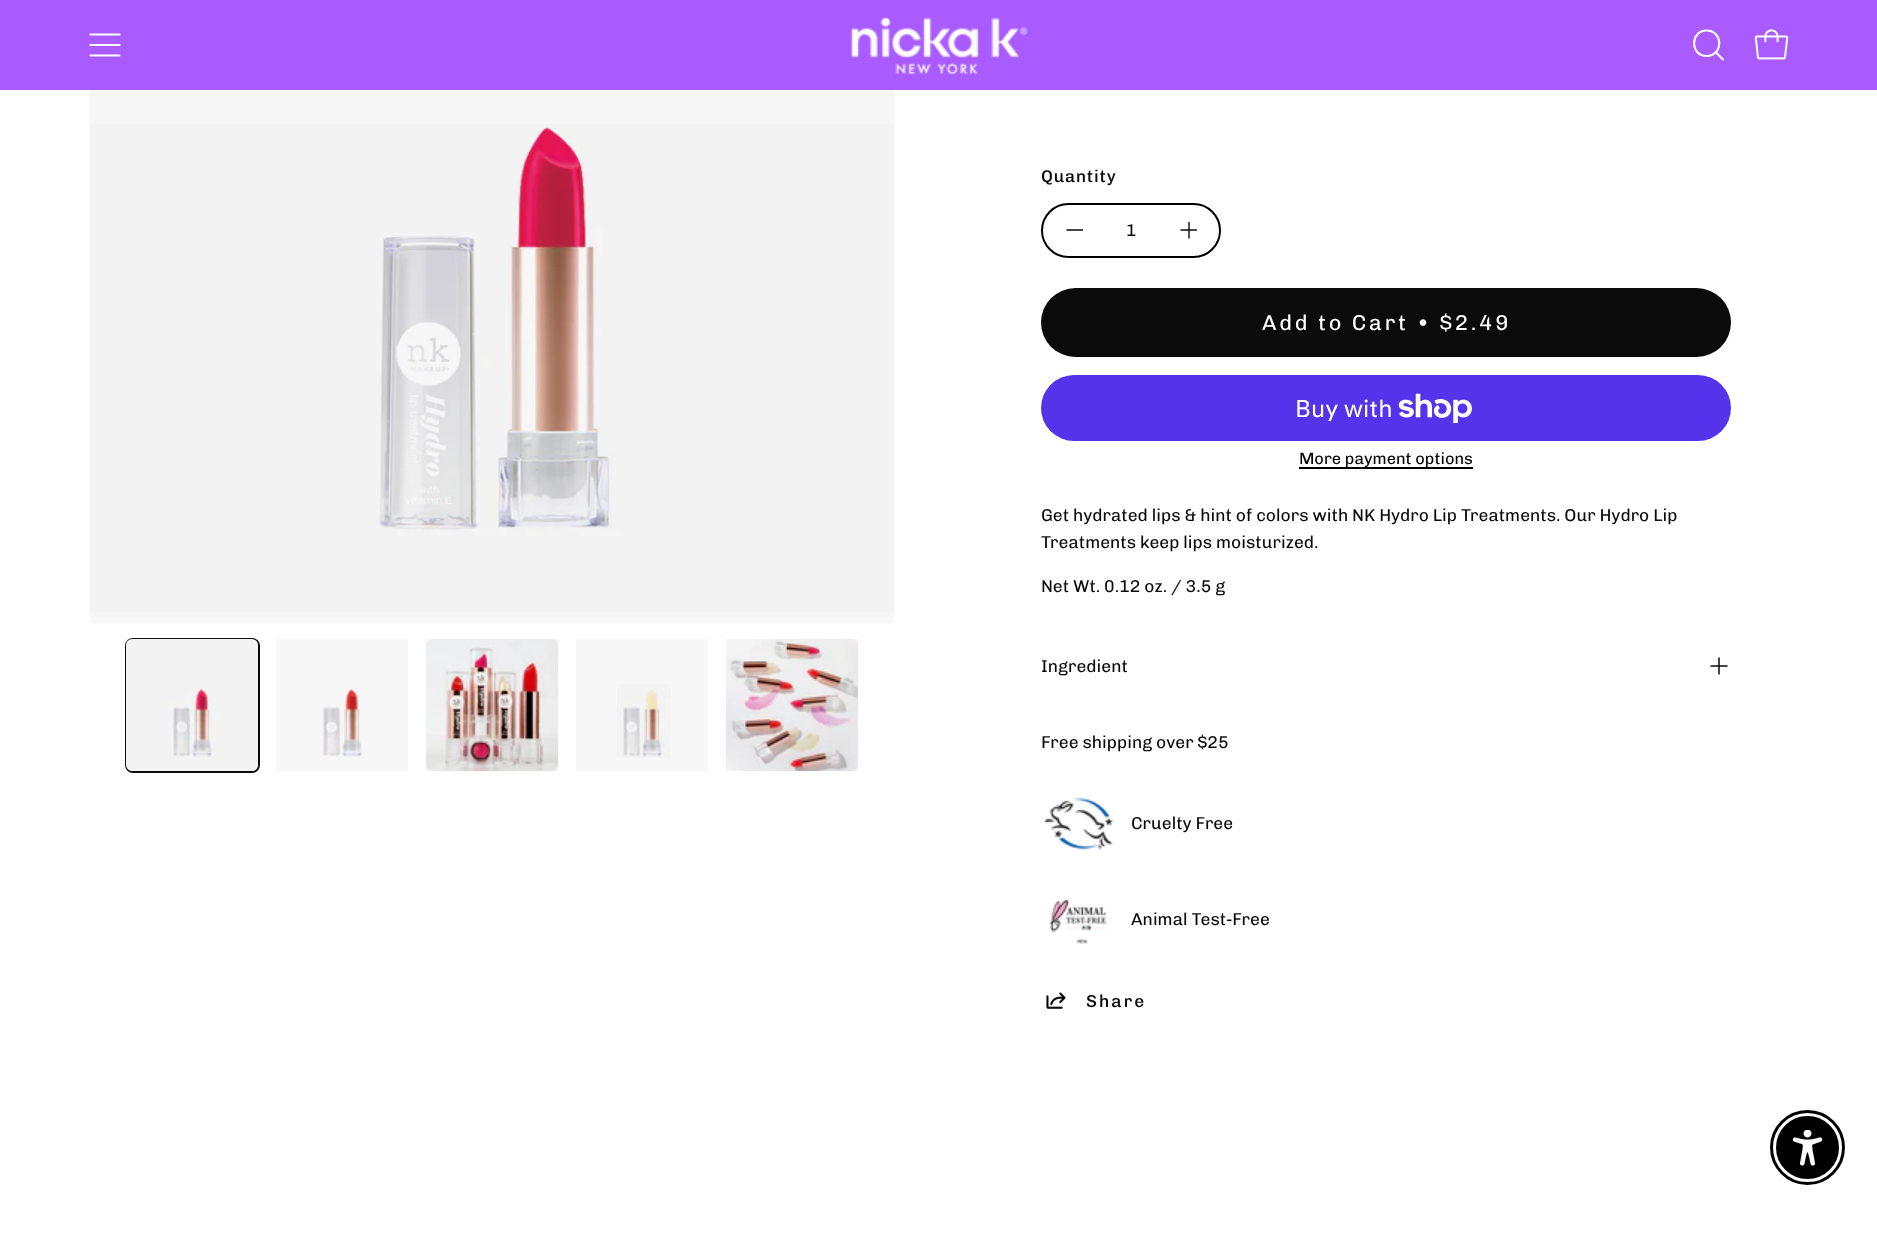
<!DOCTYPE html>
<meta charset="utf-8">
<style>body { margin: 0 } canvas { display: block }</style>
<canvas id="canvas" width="1877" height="1233"></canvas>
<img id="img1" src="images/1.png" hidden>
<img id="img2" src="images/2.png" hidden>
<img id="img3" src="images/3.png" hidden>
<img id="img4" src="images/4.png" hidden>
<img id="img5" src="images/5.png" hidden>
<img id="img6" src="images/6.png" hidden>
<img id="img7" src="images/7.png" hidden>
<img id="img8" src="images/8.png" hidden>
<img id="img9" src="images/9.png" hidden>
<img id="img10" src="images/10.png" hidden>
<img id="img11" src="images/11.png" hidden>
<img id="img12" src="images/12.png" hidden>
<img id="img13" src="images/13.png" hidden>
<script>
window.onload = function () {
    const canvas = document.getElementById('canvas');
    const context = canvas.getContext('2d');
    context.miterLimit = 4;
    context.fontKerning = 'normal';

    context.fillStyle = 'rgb(255, 255, 255)';
    context.fillRect(0, 0, 1877, 1233);
    context.fillStyle = 'rgb(169, 91, 255)';
    context.fillRect(0, 0, 1877, 90);
    context.beginPath();
    context.moveTo(90.5, 45);
    context.lineTo(119.5, 45);
    context.moveTo(90.5, 34.5);
    context.lineTo(119.5, 34.5);
    context.moveTo(90.5, 55.5);
    context.lineTo(119.5, 55.5);
    context.strokeStyle = 'rgb(255, 255, 255)';
    context.lineWidth = 2.2;
    context.lineCap = 'round';
    context.lineJoin = 'round';
    context.stroke();
    context.drawImage(document.getElementById('img1'), 850, 17, 178, 58);
    context.beginPath();
    context.moveTo(1706.5, 56);
    context.bezierCurveTo(1723.5, 56, 1723.5, 30.5, 1706.5, 30.5);
    context.bezierCurveTo(1690, 30.5, 1690, 56, 1706.5, 56);
    context.closePath();
    context.moveTo(1715.5, 52);
    context.lineTo(1723, 59.5);
    context.lineWidth = 2;
    context.stroke();
    context.drawImage(document.getElementById('img2'), 1754, 29, 35, 31);
    context.drawImage(document.getElementById('img3'), 90, 124, 804, 488);
    context.fillStyle = 'rgba(0, 0, 0, 0.03)';
    context.fillRect(90, 90, 804, 533);
    context.beginPath();
    context.roundRect(126, 639, 133, 133, 7);
    context.strokeStyle = 'rgb(11, 11, 11)';
    context.lineJoin = 'miter';
    context.stroke();
    context.drawImage(document.getElementById('img4'), 126, 639, 132, 132);
    context.fillRect(126, 639, 132, 132);
    context.drawImage(document.getElementById('img5'), 323, 689, 39, 68);
    context.fillRect(276, 639, 132, 132);
    context.drawImage(document.getElementById('img6'), 426, 639, 132, 132);
    context.fillRect(426, 639, 132, 132);
    context.drawImage(document.getElementById('img7'), 617, 684, 54, 74);
    context.fillRect(576, 639, 132, 132);
    context.drawImage(document.getElementById('img8'), 726, 639, 132, 132);
    context.fillRect(726, 639, 132, 132);
    context.beginPath();
    context.roundRect(1042, 204, 178, 53, 26.5);
    context.strokeStyle = 'rgb(0, 0, 0)';
    context.stroke();
    context.beginPath();
    context.moveTo(1067, 230);
    context.lineTo(1082.5, 230);
    context.strokeStyle = 'rgb(11, 11, 11)';
    context.lineWidth = 1.4;
    context.lineJoin = 'round';
    context.stroke();
    context.beginPath();
    context.moveTo(1181, 230);
    context.lineTo(1196.5, 230);
    context.moveTo(1189, 222.5);
    context.lineTo(1189, 238);
    context.stroke();
    context.fillStyle = 'rgb(11, 11, 11)';
    context.beginPath();
    context.roundRect(1041, 288, 690, 69, 34.5);
    context.fill();
    context.fillStyle = 'rgb(84, 51, 235)';
    context.beginPath();
    context.roundRect(1041, 375, 690, 66, 33);
    context.fill();
    context.drawImage(document.getElementById('img9'), 1398, 393, 74, 30);
    context.fillStyle = 'rgb(0, 0, 0)';
    context.fillRect(1299, 467, 174, 2);
    context.beginPath();
    context.moveTo(1711, 666);
    context.lineTo(1727, 666);
    context.moveTo(1719, 658);
    context.lineTo(1719, 674);
    context.lineWidth = 1.5;
    context.stroke();
    context.drawImage(document.getElementById('img10'), 1044, 797, 70, 53);
    context.drawImage(document.getElementById('img11'), 1049, 899, 59, 45);
    context.drawImage(document.getElementById('img12'), 1046, 992, 20, 17);
    context.beginPath();
    context.arc(1807.5, 1147.5, 36, 0, 2 * Math.PI);
    context.strokeStyle = 'rgb(0, 0, 0)';
    context.lineWidth = 3;
    context.stroke();
    context.beginPath();
    context.arc(1807.5, 1147.5, 30.5, 0, 2 * Math.PI);
    context.fill();
    context.lineWidth = 2;
    context.stroke();
    context.drawImage(document.getElementById('img13'), 1792, 1130, 31, 36);
    context.letterSpacing = '0.75px';
    context.font = '500 17px Chivo';
    context.fillStyle = 'rgb(11, 11, 11)';
    context.fillText('Quantity', 1041, 182);
    context.letterSpacing = '0px';
    context.font = '17px Chivo';
    context.fillText('1', 1126, 236);
    context.letterSpacing = '2.75px';
    context.font = '21.6px Chivo';
    context.fillStyle = 'rgb(255, 255, 255)';
    context.fillText('Add to Cart • $2.49', 1262, 330);
    context.letterSpacing = '0px';
    context.font = '24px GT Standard';
    context.fillText('Buy with', 1295, 417);
    context.font = '16.25px Chivo';
    context.fillStyle = 'rgb(0, 0, 0)';
    context.fillText('More payment options', 1299, 464);
    context.font = '17.3px Chivo';
    context.fillStyle = 'rgb(11, 11, 11)';
    context.fillText('Get hydrated lips & hint of colors with NK Hydro Lip Treatments. Our Hydro Lip', 1041, 521);
    context.fillText('Treatments keep lips moisturized.', 1041, 548);
    context.fillText('Net Wt. 0.12 oz. / 3.5 g', 1041, 592);
    context.fillText('Ingredient', 1041, 672);
    context.fillText('Free shipping over $25', 1041, 748);
    context.fillText('Cruelty Free', 1131, 829);
    context.fillText('Animal Test-Free', 1131, 925);
    context.letterSpacing = '2px';
    context.font = '500 17.3px Chivo';
    context.fillText('Share', 1086, 1007);
};
</script>
